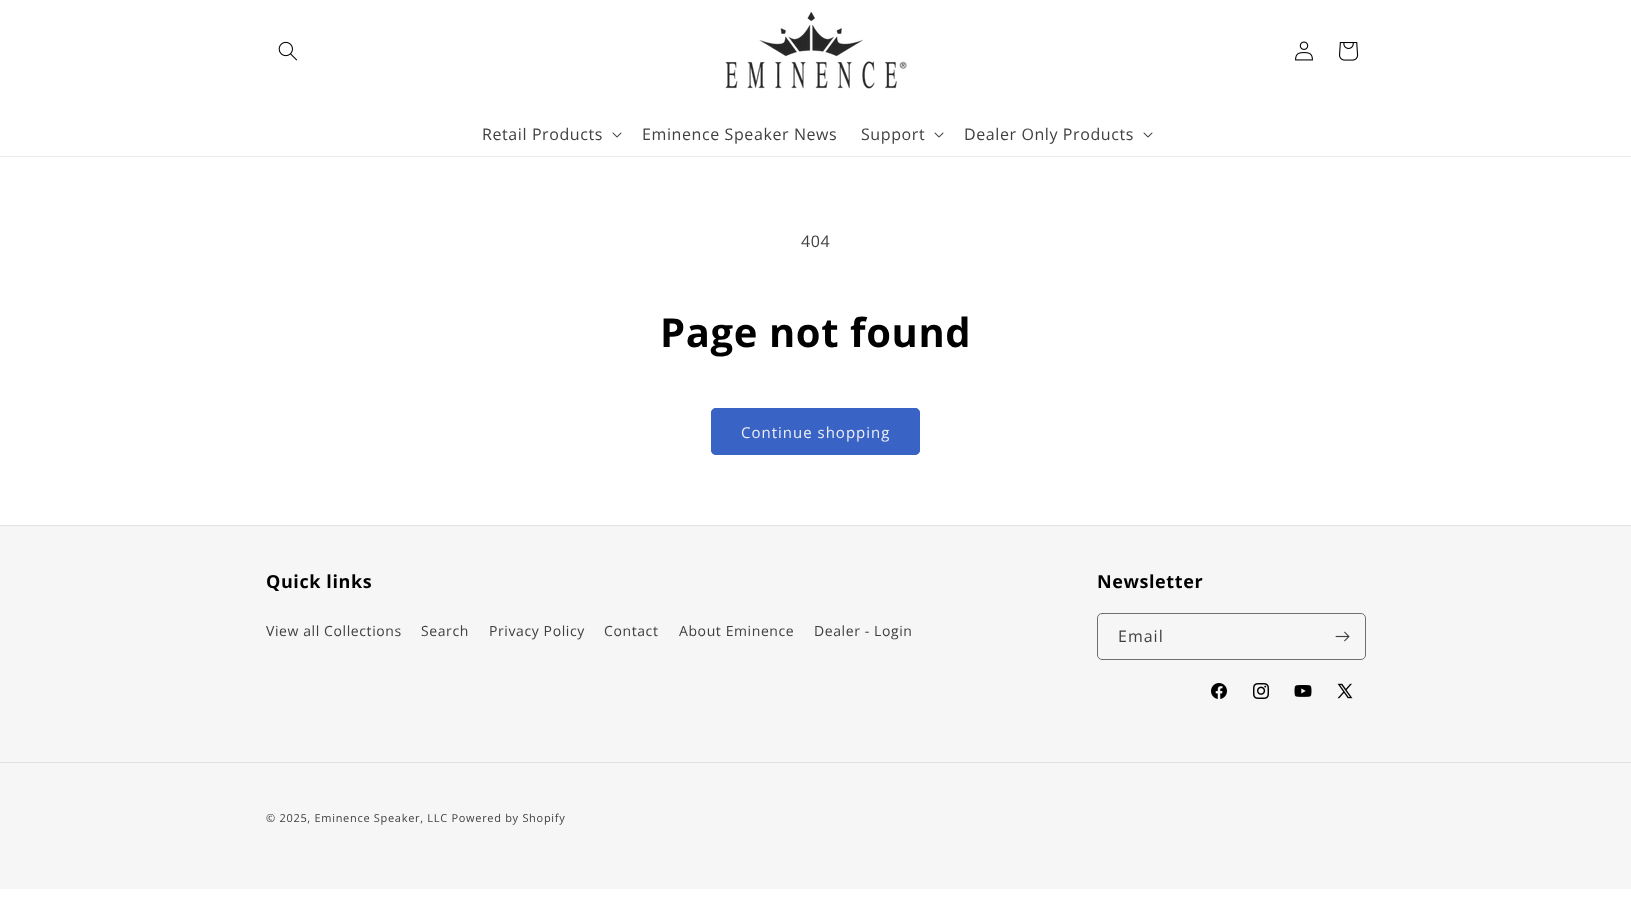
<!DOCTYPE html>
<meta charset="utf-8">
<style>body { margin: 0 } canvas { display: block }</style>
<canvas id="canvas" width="1631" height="910"></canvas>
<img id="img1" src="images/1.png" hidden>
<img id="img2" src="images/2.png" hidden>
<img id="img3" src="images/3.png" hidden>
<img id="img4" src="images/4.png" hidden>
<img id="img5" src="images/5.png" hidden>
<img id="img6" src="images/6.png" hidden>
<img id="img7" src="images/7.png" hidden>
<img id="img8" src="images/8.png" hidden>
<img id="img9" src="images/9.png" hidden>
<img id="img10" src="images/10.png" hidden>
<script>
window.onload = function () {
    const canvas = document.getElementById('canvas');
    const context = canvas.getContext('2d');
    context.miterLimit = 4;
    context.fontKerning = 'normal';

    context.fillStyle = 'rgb(255, 255, 255)';
    context.fillRect(0, 0, 1631, 910);
    context.fillStyle = 'rgb(235, 235, 235)';
    context.fillRect(0, 156, 1631, 1);
    context.drawImage(document.getElementById('img1'), 278, 41, 19, 20);
    context.drawImage(document.getElementById('img2'), 725, 11, 182, 78);
    context.drawImage(document.getElementById('img3'), 1295, 41, 18, 20);
    context.drawImage(document.getElementById('img4'), 1339, 42, 20, 19);
    context.drawImage(document.getElementById('img5'), 612, 132, 10, 6);
    context.drawImage(document.getElementById('img5'), 934, 132, 10, 6);
    context.drawImage(document.getElementById('img5'), 1143, 132, 10, 6);
    context.fillStyle = 'rgb(57, 99, 197)';
    context.beginPath();
    context.roundRect(711, 408, 209, 47, 5);
    context.fill();
    context.beginPath();
    context.roundRect(711.5, 408.5, 208, 46, 4.5);
    context.strokeStyle = 'rgb(57, 99, 197)';
    context.stroke();
    context.fillStyle = 'rgb(246, 246, 246)';
    context.fillRect(0, 526, 1631, 363);
    context.fillStyle = 'rgb(226, 226, 226)';
    context.fillRect(0, 525, 1631, 1);
    context.beginPath();
    context.roundRect(1097.5, 613.5, 268, 46, 4.5);
    context.strokeStyle = 'rgb(111, 111, 111)';
    context.stroke();
    context.drawImage(document.getElementById('img6'), 1335, 631, 15, 11);
    context.drawImage(document.getElementById('img7'), 1211, 683, 16, 16);
    context.drawImage(document.getElementById('img8'), 1253, 683, 16, 16);
    context.drawImage(document.getElementById('img9'), 1294, 685, 18, 12);
    context.drawImage(document.getElementById('img10'), 1337, 683, 16, 16);
    context.fillRect(0, 762, 1631, 1);
    context.letterSpacing = '0.6px';
    context.font = '16px Open Sans';
    context.fillStyle = 'rgb(64, 64, 64)';
    context.fillText('Retail Products', 482, 140);
    context.fillText('Eminence Speaker News', 642, 140);
    context.fillText('Support', 861, 140);
    context.fillText('Dealer Only Products', 964, 140);
    context.fillText('404', 801, 247);
    context.font = 'bold 40px Open Sans';
    context.fillStyle = 'rgb(0, 0, 0)';
    context.fillText('Page not found', 660, 347);
    context.letterSpacing = '1px';
    context.font = '15px Open Sans';
    context.fillStyle = 'rgb(239, 240, 245)';
    context.fillText('Continue shopping', 741, 438);
    context.letterSpacing = '0.6px';
    context.font = 'bold 18px Open Sans';
    context.fillStyle = 'rgb(0, 0, 0)';
    context.fillText('Quick links', 266, 588);
    context.font = '14px Open Sans';
    context.fillStyle = 'rgb(64, 64, 64)';
    context.fillText('View all Collections', 266, 636);
    context.fillText('Search', 421, 636);
    context.fillText('Privacy Policy', 489, 636);
    context.fillText('Contact', 604, 636);
    context.fillText('About Eminence', 679, 636);
    context.fillText('Dealer - Login', 814, 636);
    context.font = 'bold 18px Open Sans';
    context.fillStyle = 'rgb(0, 0, 0)';
    context.fillText('Newsletter', 1097, 588);
    context.letterSpacing = '1px';
    context.font = '16px Open Sans';
    context.fillStyle = 'rgb(64, 64, 64)';
    context.fillText('Email', 1118, 642);
    context.letterSpacing = '0.7px';
    context.font = '11px Open Sans';
    context.fillText('© 2025, Eminence Speaker, LLC Powered by Shopify', 266, 822);
};
</script>
